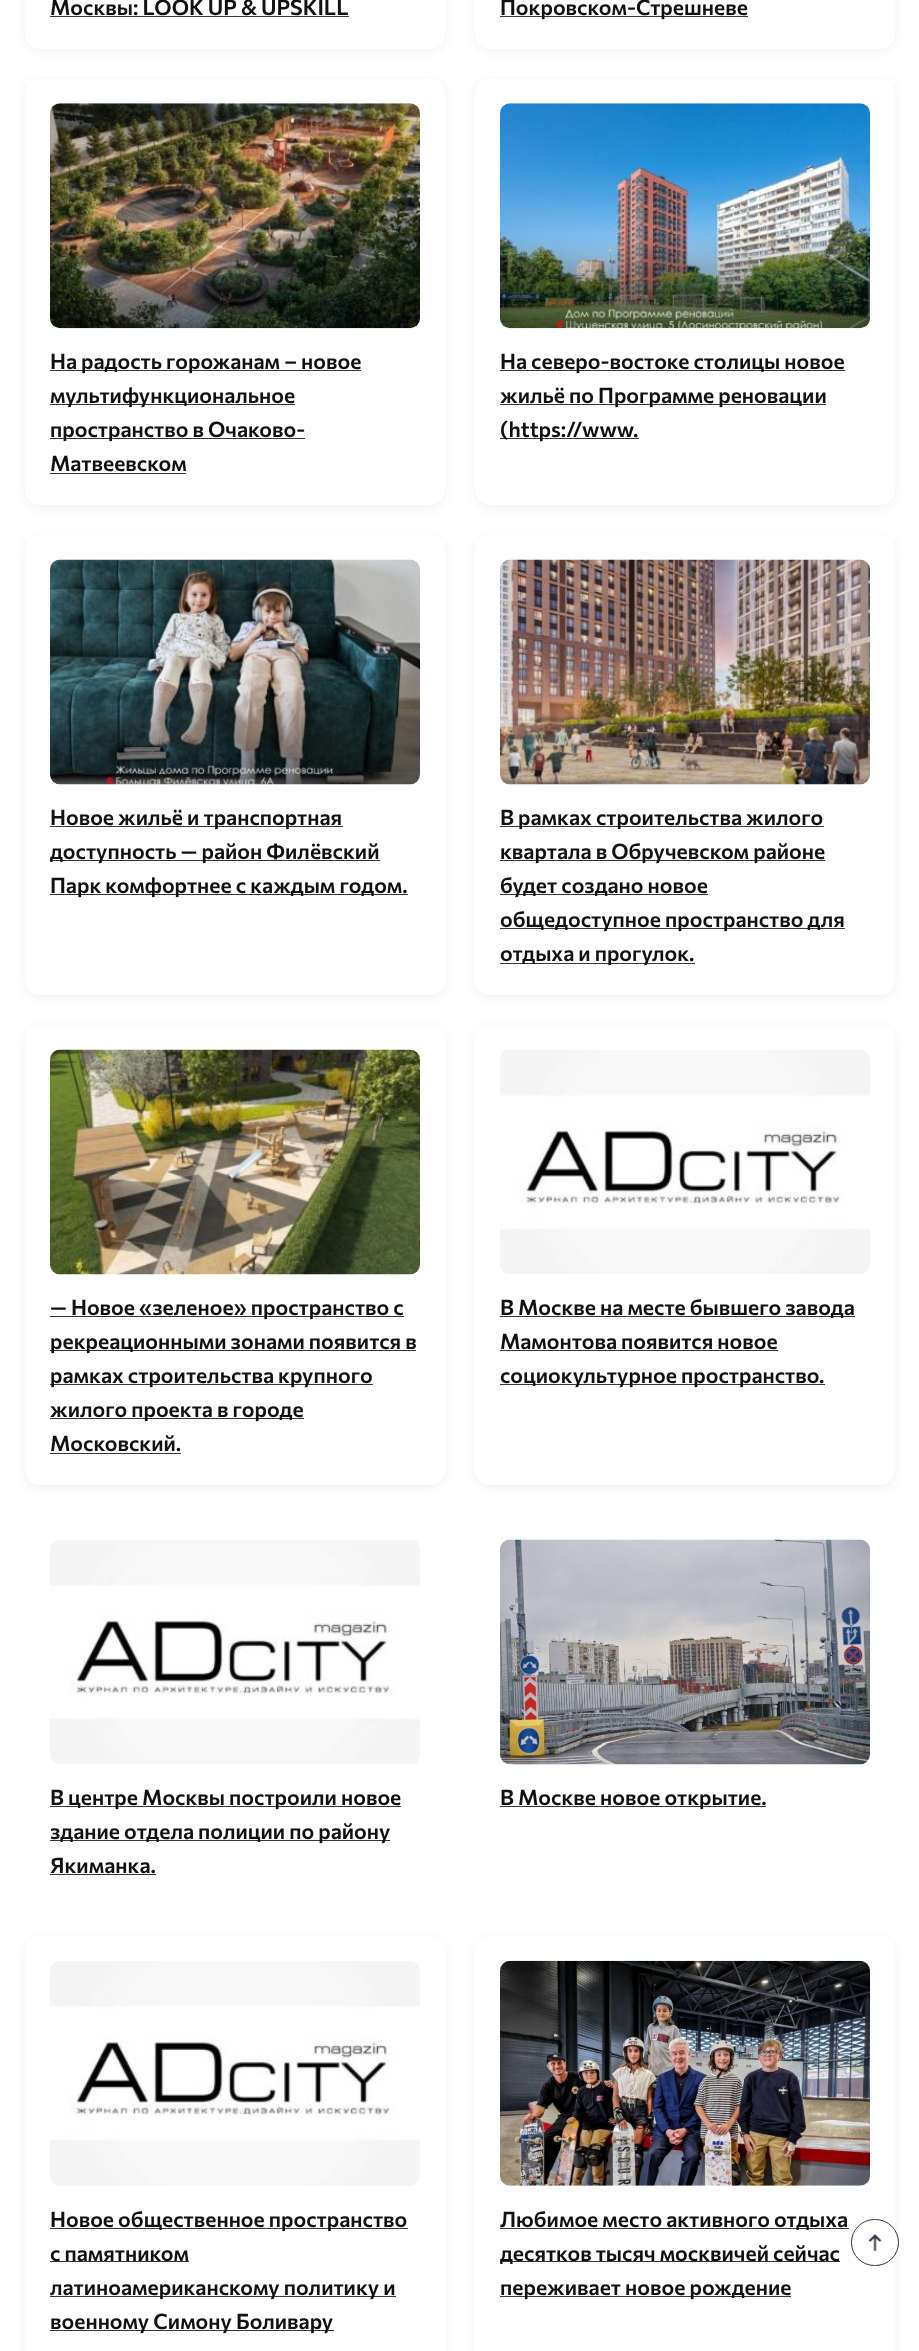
<!DOCTYPE html>
<meta charset="utf-8">
<style>body { margin: 0 } canvas { display: block }</style>
<canvas id="canvas" width="919" height="2351"></canvas>
<img id="img1" src="images/1.png" hidden>
<img id="img2" src="images/2.png" hidden>
<img id="img3" src="images/3.png" hidden>
<img id="img4" src="images/4.png" hidden>
<img id="img5" src="images/5.png" hidden>
<img id="img6" src="images/6.png" hidden>
<img id="img7" src="images/7.png" hidden>
<img id="img8" src="images/8.png" hidden>
<img id="img9" src="images/9.png" hidden>
<img id="img10" src="images/10.png" hidden>
<img id="img11" src="images/11.png" hidden>
<script>
window.onload = function () {
    const canvas = document.getElementById('canvas');
    const context = canvas.getContext('2d');
    context.miterLimit = 4;
    context.fontKerning = 'normal';

    context.fillStyle = 'rgb(255, 255, 255)';
    context.fillRect(0, 0, 919, 2351);
    context.fillStyle = 'rgba(0, 0, 0, 0.06)';
    context.filter = 'blur(6px)';
    context.beginPath();
    context.roundRect(25, -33, 420, 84, 15);
    context.fill();
    context.filter = 'none';
    context.fillStyle = 'rgb(255, 255, 255)';
    context.beginPath();
    context.roundRect(25, -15, 420, 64, 15);
    context.fill();
    context.fillStyle = 'rgb(51, 54, 70)';
    context.fillRect(50, 16, 299, 1);
    context.fillStyle = 'rgba(0, 0, 0, 0.06)';
    context.filter = 'blur(6px)';
    context.beginPath();
    context.roundRect(475, -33, 420, 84, 15);
    context.fill();
    context.filter = 'none';
    context.fillStyle = 'rgb(255, 255, 255)';
    context.beginPath();
    context.roundRect(475, -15, 420, 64, 15);
    context.fill();
    context.fillStyle = 'rgb(51, 54, 70)';
    context.fillRect(500, 16, 248, 1);
    context.fillStyle = 'rgba(0, 0, 0, 0.06)';
    context.filter = 'blur(6px)';
    context.beginPath();
    context.roundRect(25, 81, 420, 427, 15);
    context.fill();
    context.filter = 'none';
    context.fillStyle = 'rgb(255, 255, 255)';
    context.beginPath();
    context.roundRect(25, 79, 420, 426, 15);
    context.fill();
    context.drawImage(document.getElementById('img1'), 50, 103, 370, 226);
    context.fillStyle = 'rgb(51, 54, 70)';
    context.fillRect(50, 370, 311, 1);
    context.fillRect(50, 404, 245, 1);
    context.fillRect(50, 438, 255, 1);
    context.fillRect(50, 473, 136, 1);
    context.fillStyle = 'rgba(0, 0, 0, 0.06)';
    context.filter = 'blur(6px)';
    context.beginPath();
    context.roundRect(475, 81, 420, 427, 15);
    context.fill();
    context.filter = 'none';
    context.fillStyle = 'rgb(255, 255, 255)';
    context.beginPath();
    context.roundRect(475, 79, 420, 426, 15);
    context.fill();
    context.drawImage(document.getElementById('img2'), 500, 103, 370, 226);
    context.fillStyle = 'rgb(51, 54, 70)';
    context.fillRect(500, 370, 345, 1);
    context.fillRect(500, 404, 326, 1);
    context.fillRect(500, 438, 139, 1);
    context.fillStyle = 'rgba(0, 0, 0, 0.06)';
    context.filter = 'blur(6px)';
    context.beginPath();
    context.roundRect(25, 538, 420, 460, 15);
    context.fill();
    context.filter = 'none';
    context.fillStyle = 'rgb(255, 255, 255)';
    context.beginPath();
    context.roundRect(25, 535, 420, 460, 15);
    context.fill();
    context.drawImage(document.getElementById('img3'), 50, 559, 370, 226);
    context.fillStyle = 'rgb(51, 54, 70)';
    context.fillRect(50, 826, 293, 1);
    context.fillRect(50, 860, 330, 1);
    context.fillRect(50, 894, 358, 1);
    context.fillStyle = 'rgba(0, 0, 0, 0.06)';
    context.filter = 'blur(6px)';
    context.beginPath();
    context.roundRect(475, 538, 420, 460, 15);
    context.fill();
    context.filter = 'none';
    context.fillStyle = 'rgb(255, 255, 255)';
    context.beginPath();
    context.roundRect(475, 535, 420, 460, 15);
    context.fill();
    context.drawImage(document.getElementById('img4'), 500, 559, 370, 226);
    context.fillStyle = 'rgb(51, 54, 70)';
    context.fillRect(500, 826, 324, 1);
    context.fillRect(500, 860, 325, 1);
    context.fillRect(500, 894, 208, 1);
    context.fillRect(500, 928, 345, 1);
    context.fillRect(500, 963, 195, 1);
    context.fillStyle = 'rgba(0, 0, 0, 0.06)';
    context.filter = 'blur(6px)';
    context.beginPath();
    context.roundRect(25, 1028, 420, 460, 15);
    context.fill();
    context.filter = 'none';
    context.fillStyle = 'rgb(255, 255, 255)';
    context.beginPath();
    context.roundRect(25, 1025, 420, 460, 15);
    context.fill();
    context.drawImage(document.getElementById('img5'), 50, 1049, 370, 226);
    context.fillStyle = 'rgb(51, 54, 70)';
    context.fillRect(50, 1316, 354, 1);
    context.fillRect(50, 1350, 366, 1);
    context.fillRect(50, 1384, 323, 1);
    context.fillRect(50, 1418, 254, 1);
    context.fillRect(50, 1453, 131, 1);
    context.fillStyle = 'rgba(0, 0, 0, 0.06)';
    context.filter = 'blur(6px)';
    context.beginPath();
    context.roundRect(475, 1028, 420, 460, 15);
    context.fill();
    context.filter = 'none';
    context.fillStyle = 'rgb(255, 255, 255)';
    context.beginPath();
    context.roundRect(475, 1025, 420, 460, 15);
    context.fill();
    context.drawImage(document.getElementById('img6'), 500, 1050, 370, 224);
    context.fillStyle = 'rgb(51, 54, 70)';
    context.fillRect(500, 1316, 355, 1);
    context.fillRect(500, 1350, 278, 1);
    context.fillRect(500, 1384, 325, 1);
    context.drawImage(document.getElementById('img7'), 50, 1540, 370, 224);
    context.fillRect(50, 1806, 351, 1);
    context.fillRect(50, 1840, 340, 1);
    context.fillRect(50, 1874, 106, 1);
    context.drawImage(document.getElementById('img8'), 500, 1539, 370, 226);
    context.fillRect(500, 1806, 266, 1);
    context.fillStyle = 'rgba(0, 0, 0, 0.06)';
    context.filter = 'blur(6px)';
    context.beginPath();
    context.roundRect(25, 1939, 420, 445, 15);
    context.fill();
    context.filter = 'none';
    context.fillStyle = 'rgb(255, 255, 255)';
    context.beginPath();
    context.roundRect(25, 1936, 420, 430, 15);
    context.fill();
    context.drawImage(document.getElementById('img9'), 50, 1961, 370, 225);
    context.fillStyle = 'rgb(51, 54, 70)';
    context.fillRect(50, 2228, 358, 1);
    context.fillRect(50, 2261, 139, 1);
    context.fillRect(50, 2296, 346, 1);
    context.fillRect(50, 2330, 284, 1);
    context.fillStyle = 'rgba(0, 0, 0, 0.06)';
    context.filter = 'blur(6px)';
    context.beginPath();
    context.roundRect(475, 1939, 420, 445, 15);
    context.fill();
    context.filter = 'none';
    context.fillStyle = 'rgb(255, 255, 255)';
    context.beginPath();
    context.roundRect(475, 1936, 420, 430, 15);
    context.fill();
    context.drawImage(document.getElementById('img10'), 500, 1960, 370, 226);
    context.fillStyle = 'rgb(51, 54, 70)';
    context.fillRect(500, 2228, 349, 1);
    context.fillRect(500, 2261, 340, 1);
    context.fillRect(500, 2296, 291, 1);
    context.fillStyle = 'rgb(255, 255, 255)';
    context.beginPath();
    context.roundRect(851.5, 2219.5, 47, 46, 23);
    context.fill();
    context.strokeStyle = 'rgb(51, 54, 70)';
    context.stroke();
    context.drawImage(document.getElementById('img11'), 868, 2234, 14, 17);
    context.font = '600 21.25px Commissioner';
    context.fillStyle = 'rgb(17, 17, 17)';
    context.fillText('Москвы: LOOK UP & UPSKILL', 50, 15);
    context.fillText('Покровском-Стрешневе', 500, 15);
    context.fillText('На радость горожанам – новое', 50, 369);
    context.fillText('мультифункциональное', 50, 403);
    context.fillText('пространство в Очаково-', 50, 437);
    context.fillText('Матвеевском', 50, 471);
    context.fillText('На северо-востоке столицы новое', 500, 369);
    context.fillText('жильё по Программе реновации', 500, 403);
    context.fillText('(https://www.', 500, 437);
    context.fillText('Новое жильё и транспортная', 50, 825);
    context.fillText('доступность — район Филёвский', 50, 859);
    context.fillText('Парк комфортнее с каждым годом.', 50, 893);
    context.fillText('В рамках строительства жилого', 500, 825);
    context.fillText('квартала в Обручевском районе', 500, 859);
    context.fillText('будет создано новое', 500, 893);
    context.fillText('общедоступное пространство для', 500, 927);
    context.fillText('отдыха и прогулок.', 500, 961);
    context.fillText('— Новое «зеленое» пространство с', 50, 1315);
    context.fillText('рекреационными зонами появится в', 50, 1349);
    context.fillText('рамках строительства крупного', 50, 1383);
    context.fillText('жилого проекта в городе', 50, 1417);
    context.fillText('Московский.', 50, 1451);
    context.fillText('В Москве на месте бывшего завода', 500, 1315);
    context.fillText('Мамонтова появится новое', 500, 1349);
    context.fillText('социокультурное пространство.', 500, 1383);
    context.fillText('В центре Москвы построили новое', 50, 1805);
    context.fillText('здание отдела полиции по району', 50, 1839);
    context.fillText('Якиманка.', 50, 1873);
    context.fillText('В Москве новое открытие.', 500, 1805);
    context.fillText('Новое общественное пространство', 50, 2227);
    context.fillText('с памятником', 50, 2261);
    context.fillText('латиноамериканскому политику и', 50, 2295);
    context.fillText('военному Симону Боливару', 50, 2329);
    context.fillText('Любимое место активного отдыха', 500, 2227);
    context.fillText('десятков тысяч москвичей сейчас', 500, 2261);
    context.fillText('переживает новое рождение', 500, 2295);
};
</script>
